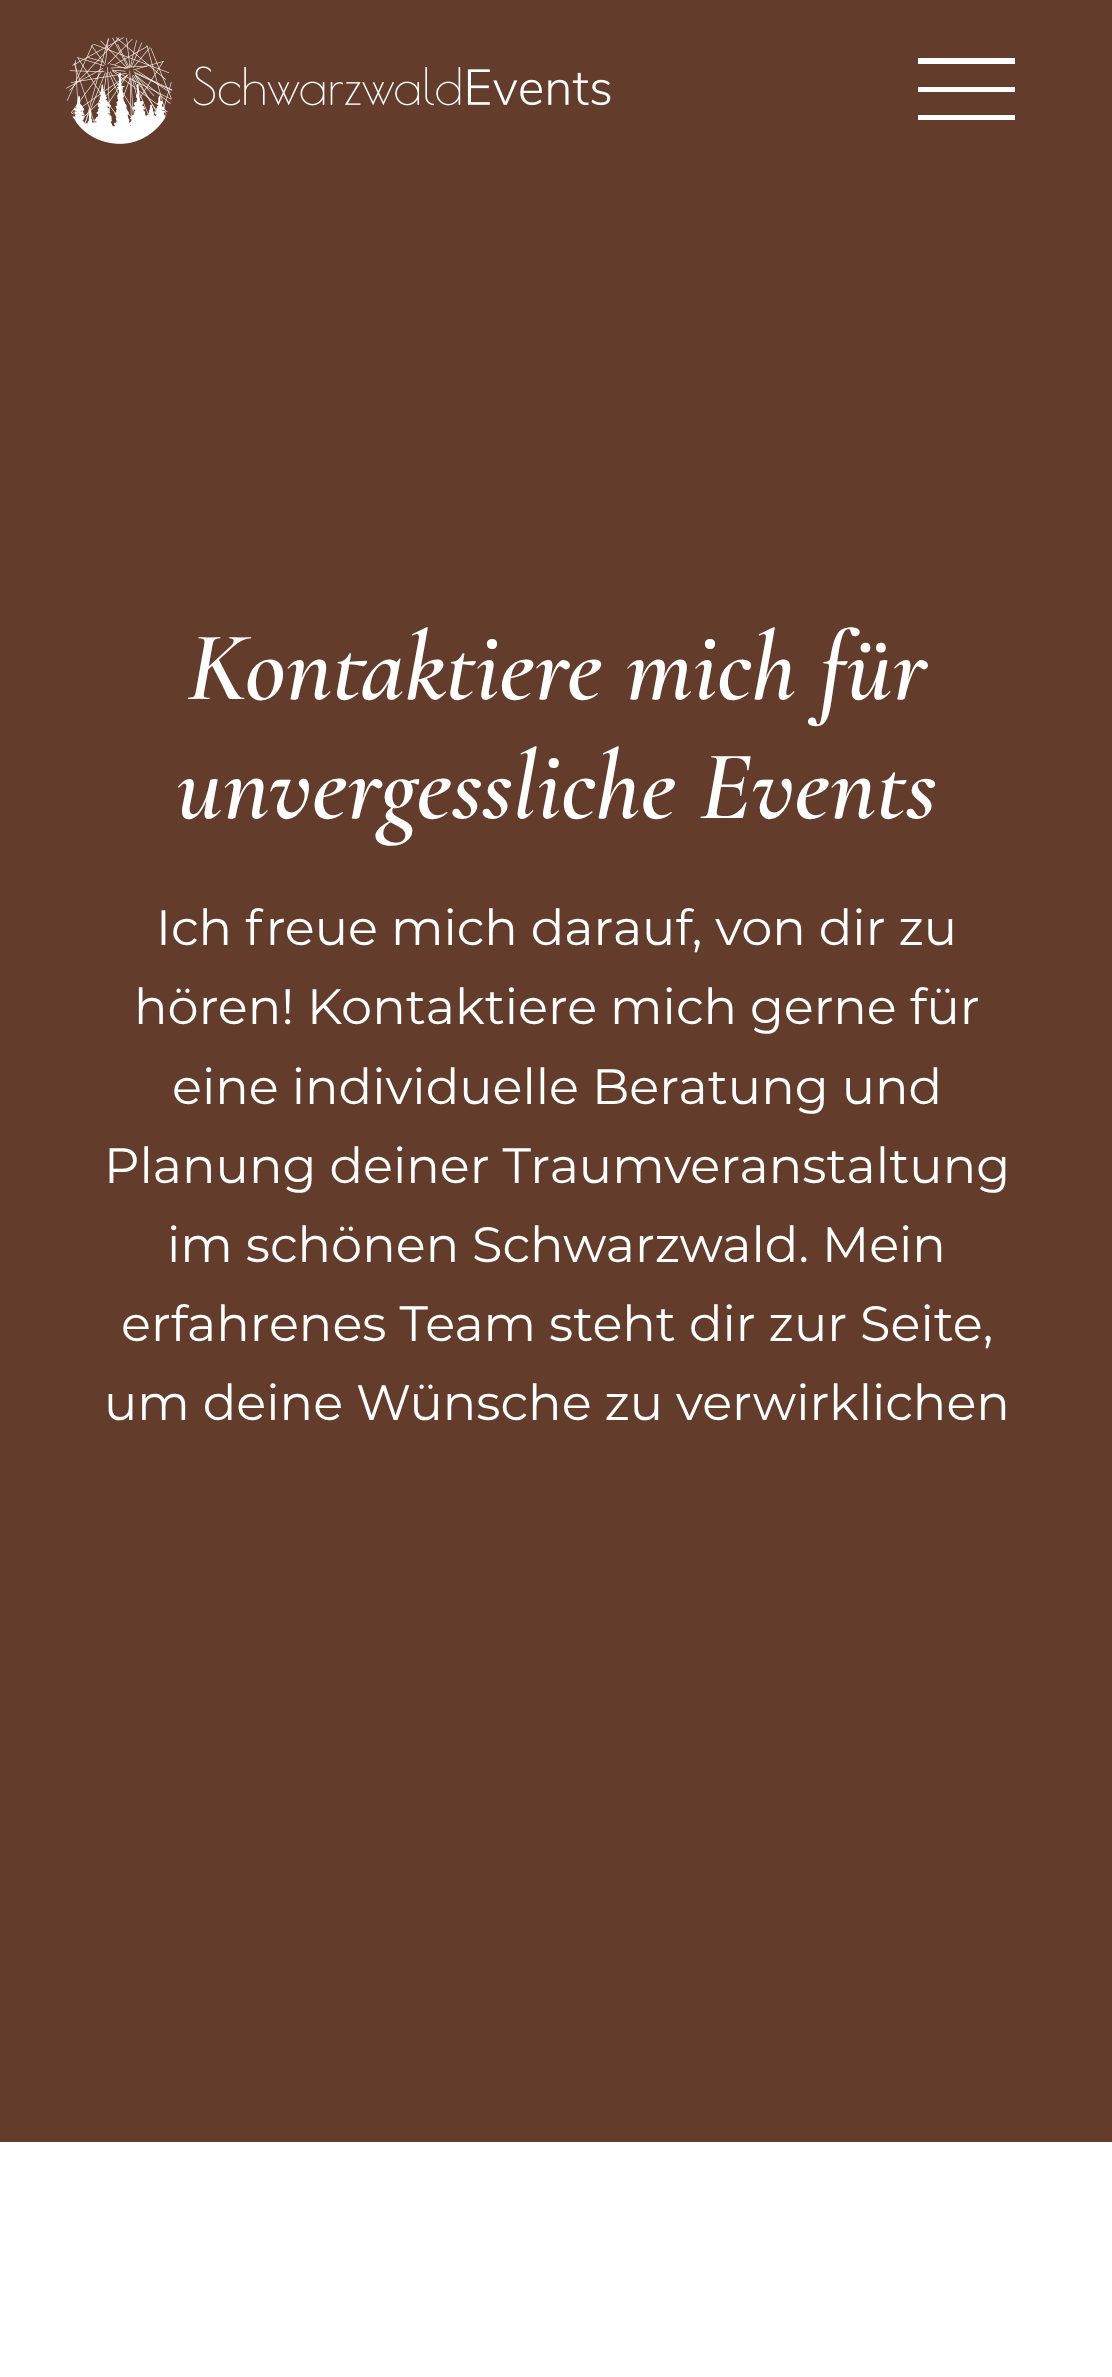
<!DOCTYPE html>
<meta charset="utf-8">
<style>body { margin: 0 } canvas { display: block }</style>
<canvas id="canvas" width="1112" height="2377"></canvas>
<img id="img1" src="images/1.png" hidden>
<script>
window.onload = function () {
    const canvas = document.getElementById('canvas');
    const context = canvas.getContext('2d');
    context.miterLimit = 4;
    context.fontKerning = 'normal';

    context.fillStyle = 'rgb(255, 255, 255)';
    context.fillRect(0, 0, 1112, 2377);
    context.fillStyle = 'rgb(99, 60, 43)';
    context.fillRect(0, 0, 1112, 2142);
    context.drawImage(document.getElementById('img1'), 66, 37, 545, 107);
    context.fillStyle = 'rgb(255, 255, 255)';
    context.fillRect(918, 58, 97, 6);
    context.fillRect(918, 87, 97, 5);
    context.fillRect(918, 115, 97, 5);
    context.font = 'italic 600 99px Cormorant Garamond';
    context.fillText('Kontaktiere mich für', 187, 699);
    context.fillText('unvergessliche Events', 176, 818);
    context.font = '49.5px Montserrat';
    context.fillText('Ich freue mich darauf, von dir zu', 156, 945);
    context.fillText('hören! Kontaktiere mich gerne für', 134, 1024);
    context.fillText('eine individuelle Beratung und', 172, 1104);
    context.fillText('Planung deiner Traumveranstaltung', 104, 1183);
    context.fillText('im schönen Schwarzwald. Mein', 167, 1262);
    context.fillText('erfahrenes Team steht dir zur Seite,', 121, 1341);
    context.fillText('um deine Wünsche zu verwirklichen', 104, 1420);
};
</script>
